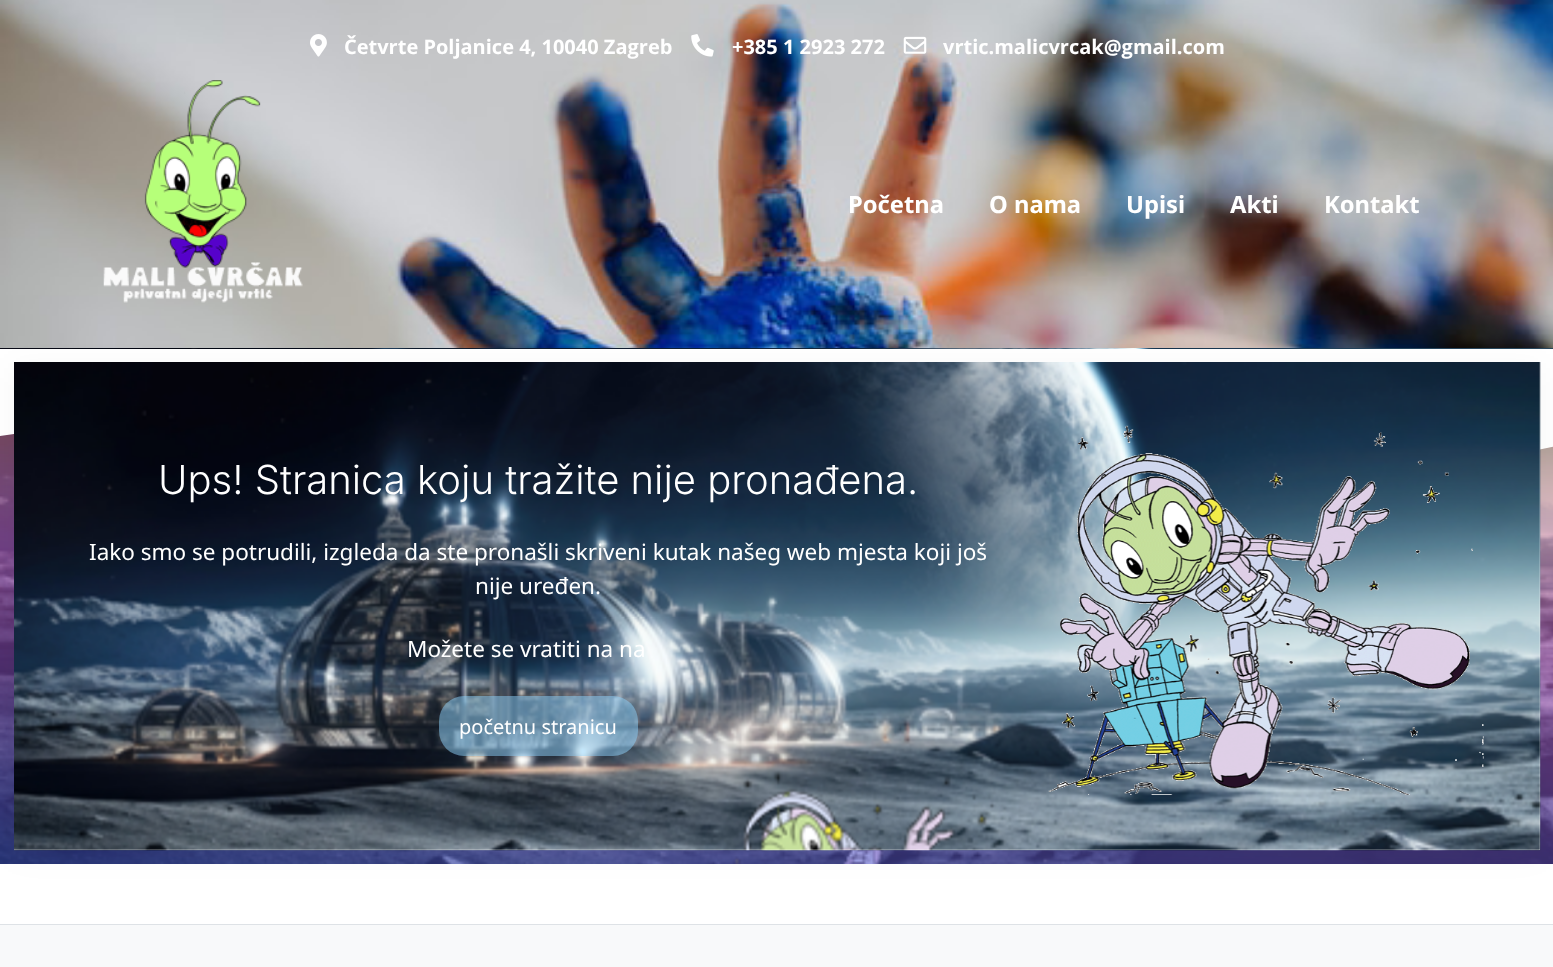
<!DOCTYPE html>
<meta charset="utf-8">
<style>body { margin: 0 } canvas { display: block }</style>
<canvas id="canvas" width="1553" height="967"></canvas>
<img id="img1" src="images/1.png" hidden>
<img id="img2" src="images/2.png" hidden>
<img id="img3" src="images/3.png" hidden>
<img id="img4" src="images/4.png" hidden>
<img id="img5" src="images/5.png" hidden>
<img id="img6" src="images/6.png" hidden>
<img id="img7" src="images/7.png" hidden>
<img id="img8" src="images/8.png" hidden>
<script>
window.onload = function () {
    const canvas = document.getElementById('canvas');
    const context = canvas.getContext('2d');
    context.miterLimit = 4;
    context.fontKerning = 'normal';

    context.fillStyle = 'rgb(255, 255, 255)';
    context.fillRect(0, 0, 1553, 967);
    context.drawImage(document.getElementById('img1'), 0, 0, 1553, 348);
    context.drawImage(document.getElementById('img2'), 310, 34, 17, 23);
    context.drawImage(document.getElementById('img3'), 691, 34, 23, 23);
    context.drawImage(document.getElementById('img4'), 903, 36, 24, 18);
    context.drawImage(document.getElementById('img5'), 103, 80, 200, 223);
    context.drawImage(document.getElementById('img6'), 0, 348, 1553, 516);
    context.save();
    context.beginPath();
    context.rect(0, 349, 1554, 156);
    context.clip();
    context.beginPath();
    context.moveTo(1355, 467);
    context.bezierCurveTo(1160, 467, 1084, 404, 897, 404);
    context.bezierCurveTo(771, 404, 673, 457, 476, 457);
    context.bezierCurveTo(324, 457, 249, 426, 129, 426);
    context.bezierCurveTo(10, 426, -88, 454, -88, 454);
    context.lineTo(-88, 340);
    context.lineTo(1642, 340);
    context.lineTo(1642, 425);
    context.bezierCurveTo(1524, 457, 1449, 467, 1355, 467);
    context.closePath();
    context.fill();
    context.restore();
    context.fillStyle = 'rgba(0, 0, 0, 0.04)';
    context.filter = 'blur(15px)';
    context.beginPath();
    context.rect(14, 368, 1526, 487);
    context.fill();
    context.filter = 'none';
    context.fillStyle = 'rgb(255, 255, 255)';
    context.fillRect(14, 363, 1526, 487);
    context.drawImage(document.getElementById('img7'), 14, 362, 1527, 489);
    context.fillStyle = 'rgba(141, 210, 252, 0.5)';
    context.beginPath();
    context.roundRect(439, 696, 199, 60, 25);
    context.fill();
    context.drawImage(document.getElementById('img8'), 1048, 425, 436, 370);
    context.fillStyle = 'rgb(248, 249, 250)';
    context.fillRect(0, 925, 1553, 42);
    context.fillStyle = 'rgb(222, 226, 230)';
    context.fillRect(0, 924, 1553, 1);
    context.font = 'bold 20px Open Sans';
    context.fillStyle = 'rgb(255, 255, 255)';
    context.fillText('Četvrte Poljanice 4, 10040 Zagreb', 344, 54);
    context.fillText('+385 1 2923 272', 732, 54);
    context.fillText('vrtic.malicvrcak@gmail.com', 943, 54);
    context.font = 'bold 23.75px Noto Sans';
    context.fillText('Početna', 848, 213);
    context.fillText('O nama', 989, 213);
    context.fillText('Upisi', 1126, 213);
    context.fillText('Akti', 1230, 213);
    context.fillText('Kontakt', 1324, 213);
    context.font = '300 40px Inter';
    context.fillText('Ups! Stranica koju tražite nije pronađena.', 158, 494);
    context.font = '22.5px Noto Sans';
    context.fillText('Iako smo se potrudili, izgleda da ste pronašli skriveni kutak našeg web mjesta koji još', 89, 560);
    context.fillText('nije uređen.', 475, 594);
    context.fillText('Možete se vratiti na na', 407, 657);
    context.font = '20px Noto Sans';
    context.fillText('početnu stranicu', 459, 734);
};
</script>
